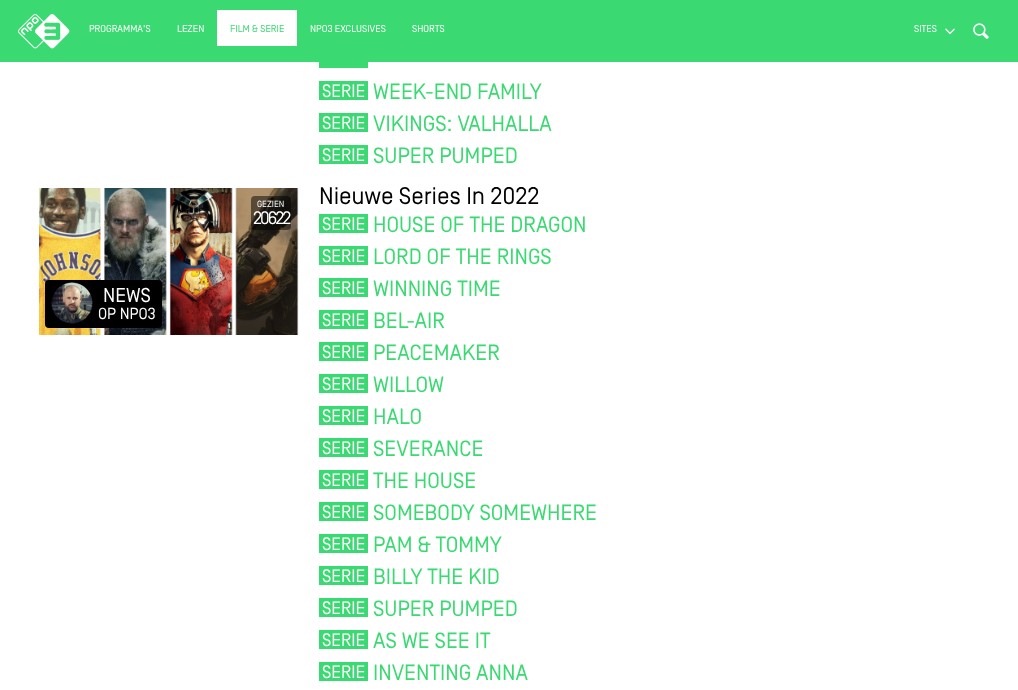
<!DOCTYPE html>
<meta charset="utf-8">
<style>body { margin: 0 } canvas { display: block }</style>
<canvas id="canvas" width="1018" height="690"></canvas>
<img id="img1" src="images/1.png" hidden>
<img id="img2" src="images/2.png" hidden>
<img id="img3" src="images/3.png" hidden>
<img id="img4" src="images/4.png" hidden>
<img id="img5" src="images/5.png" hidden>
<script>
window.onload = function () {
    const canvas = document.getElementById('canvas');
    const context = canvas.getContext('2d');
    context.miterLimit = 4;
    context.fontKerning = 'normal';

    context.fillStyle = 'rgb(255, 255, 255)';
    context.fillRect(0, 0, 1018, 690);
    context.fillStyle = 'rgb(59, 217, 114)';
    context.fillRect(0, 0, 1018, 62);
    context.drawImage(document.getElementById('img1'), 18, 14, 52, 35);
    context.fillStyle = 'rgb(255, 255, 255)';
    context.fillRect(217, 10, 80, 36);
    context.drawImage(document.getElementById('img2'), 945, 28, 10, 6);
    context.drawImage(document.getElementById('img3'), 973, 23, 16, 16);
    context.fillStyle = 'rgb(59, 217, 114)';
    context.fillRect(319, 62, 49, 6);
    context.fillRect(319, 81, 49, 19);
    context.fillRect(319, 113, 49, 19);
    context.fillRect(319, 145, 49, 19);
    context.drawImage(document.getElementById('img4'), 39, 188, 260, 147);
    context.fillStyle = 'rgba(0, 0, 0, 0.5)';
    context.beginPath();
    context.roundRect(251, 196, 40, 34, 4);
    context.fill();
    context.fillStyle = 'rgb(0, 0, 0)';
    context.beginPath();
    context.roundRect(45, 280, 117, 48, 4);
    context.fill();
    context.drawImage(document.getElementById('img5'), 51, 282, 42, 42);
    context.fillStyle = 'rgb(59, 217, 114)';
    context.fillRect(319, 214, 49, 19);
    context.fillRect(319, 246, 49, 19);
    context.fillRect(319, 278, 49, 19);
    context.fillRect(319, 310, 49, 19);
    context.fillRect(319, 342, 49, 19);
    context.fillRect(319, 374, 49, 19);
    context.fillRect(319, 406, 49, 19);
    context.fillRect(319, 438, 49, 19);
    context.fillRect(319, 470, 49, 19);
    context.fillRect(319, 502, 49, 19);
    context.fillRect(319, 534, 49, 19);
    context.fillRect(319, 566, 49, 19);
    context.fillRect(319, 598, 49, 19);
    context.fillRect(319, 630, 49, 19);
    context.fillRect(319, 662, 49, 19);
    context.font = '10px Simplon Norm';
    context.fillStyle = 'rgb(255, 255, 255)';
    context.fillText('PROGRAMMA\'S', 89, 32);
    context.fillText('LEZEN', 177, 32);
    context.fillStyle = 'rgb(59, 217, 114)';
    context.fillText('FILM & SERIE', 230, 32);
    context.fillStyle = 'rgb(255, 255, 255)';
    context.fillText('NPO3 EXCLUSIVES', 310, 32);
    context.fillText('SHORTS', 412, 32);
    context.fillText('SITES', 914, 32);
    context.font = '18px Simplon Norm';
    context.fillText('SERIE', 322, 97);
    context.font = '22px Simplon Norm';
    context.fillStyle = 'rgb(59, 217, 114)';
    context.fillText('WEEK-END FAMILY', 373, 99);
    context.font = '18px Simplon Norm';
    context.fillStyle = 'rgb(255, 255, 255)';
    context.fillText('SERIE', 322, 129);
    context.font = '22px Simplon Norm';
    context.fillStyle = 'rgb(59, 217, 114)';
    context.fillText('VIKINGS: VALHALLA', 373, 131);
    context.font = '18px Simplon Norm';
    context.fillStyle = 'rgb(255, 255, 255)';
    context.fillText('SERIE', 322, 161);
    context.font = '22px Simplon Norm';
    context.fillStyle = 'rgb(59, 217, 114)';
    context.fillText('SUPER PUMPED', 373, 163);
    context.font = '9px Simplon Norm';
    context.fillStyle = 'rgb(255, 255, 255)';
    context.fillText('GEZIEN', 257, 207);
    context.letterSpacing = '-2px';
    context.font = '18px Simplon Norm';
    context.fillText('20622', 253, 224);
    context.letterSpacing = '0px';
    context.font = '20px Simplon Norm';
    context.fillText('NEWS', 103, 302);
    context.font = '16px Simplon Norm';
    context.fillText('OP NPO3', 98, 319);
    context.font = '24px Simplon Norm';
    context.fillStyle = 'rgb(0, 0, 0)';
    context.fillText('Nieuwe Series In 2022', 319, 204);
    context.font = '18px Simplon Norm';
    context.fillStyle = 'rgb(255, 255, 255)';
    context.fillText('SERIE', 322, 230);
    context.font = '22px Simplon Norm';
    context.fillStyle = 'rgb(59, 217, 114)';
    context.fillText('HOUSE OF THE DRAGON', 373, 232);
    context.font = '18px Simplon Norm';
    context.fillStyle = 'rgb(255, 255, 255)';
    context.fillText('SERIE', 322, 262);
    context.font = '22px Simplon Norm';
    context.fillStyle = 'rgb(59, 217, 114)';
    context.fillText('LORD OF THE RINGS', 373, 264);
    context.font = '18px Simplon Norm';
    context.fillStyle = 'rgb(255, 255, 255)';
    context.fillText('SERIE', 322, 294);
    context.font = '22px Simplon Norm';
    context.fillStyle = 'rgb(59, 217, 114)';
    context.fillText('WINNING TIME', 373, 296);
    context.font = '18px Simplon Norm';
    context.fillStyle = 'rgb(255, 255, 255)';
    context.fillText('SERIE', 322, 326);
    context.font = '22px Simplon Norm';
    context.fillStyle = 'rgb(59, 217, 114)';
    context.fillText('BEL-AIR', 373, 328);
    context.font = '18px Simplon Norm';
    context.fillStyle = 'rgb(255, 255, 255)';
    context.fillText('SERIE', 322, 358);
    context.font = '22px Simplon Norm';
    context.fillStyle = 'rgb(59, 217, 114)';
    context.fillText('PEACEMAKER', 373, 360);
    context.font = '18px Simplon Norm';
    context.fillStyle = 'rgb(255, 255, 255)';
    context.fillText('SERIE', 322, 390);
    context.font = '22px Simplon Norm';
    context.fillStyle = 'rgb(59, 217, 114)';
    context.fillText('WILLOW', 373, 392);
    context.font = '18px Simplon Norm';
    context.fillStyle = 'rgb(255, 255, 255)';
    context.fillText('SERIE', 322, 422);
    context.font = '22px Simplon Norm';
    context.fillStyle = 'rgb(59, 217, 114)';
    context.fillText('HALO', 373, 424);
    context.font = '18px Simplon Norm';
    context.fillStyle = 'rgb(255, 255, 255)';
    context.fillText('SERIE', 322, 454);
    context.font = '22px Simplon Norm';
    context.fillStyle = 'rgb(59, 217, 114)';
    context.fillText('SEVERANCE', 373, 456);
    context.font = '18px Simplon Norm';
    context.fillStyle = 'rgb(255, 255, 255)';
    context.fillText('SERIE', 322, 486);
    context.font = '22px Simplon Norm';
    context.fillStyle = 'rgb(59, 217, 114)';
    context.fillText('THE HOUSE', 373, 488);
    context.font = '18px Simplon Norm';
    context.fillStyle = 'rgb(255, 255, 255)';
    context.fillText('SERIE', 322, 518);
    context.font = '22px Simplon Norm';
    context.fillStyle = 'rgb(59, 217, 114)';
    context.fillText('SOMEBODY SOMEWHERE', 373, 520);
    context.font = '18px Simplon Norm';
    context.fillStyle = 'rgb(255, 255, 255)';
    context.fillText('SERIE', 322, 550);
    context.font = '22px Simplon Norm';
    context.fillStyle = 'rgb(59, 217, 114)';
    context.fillText('PAM & TOMMY', 373, 552);
    context.font = '18px Simplon Norm';
    context.fillStyle = 'rgb(255, 255, 255)';
    context.fillText('SERIE', 322, 582);
    context.font = '22px Simplon Norm';
    context.fillStyle = 'rgb(59, 217, 114)';
    context.fillText('BILLY THE KID', 373, 584);
    context.font = '18px Simplon Norm';
    context.fillStyle = 'rgb(255, 255, 255)';
    context.fillText('SERIE', 322, 614);
    context.font = '22px Simplon Norm';
    context.fillStyle = 'rgb(59, 217, 114)';
    context.fillText('SUPER PUMPED', 373, 616);
    context.font = '18px Simplon Norm';
    context.fillStyle = 'rgb(255, 255, 255)';
    context.fillText('SERIE', 322, 646);
    context.font = '22px Simplon Norm';
    context.fillStyle = 'rgb(59, 217, 114)';
    context.fillText('AS WE SEE IT', 373, 648);
    context.font = '18px Simplon Norm';
    context.fillStyle = 'rgb(255, 255, 255)';
    context.fillText('SERIE', 322, 678);
    context.font = '22px Simplon Norm';
    context.fillStyle = 'rgb(59, 217, 114)';
    context.fillText('INVENTING ANNA', 373, 680);
};
</script>
